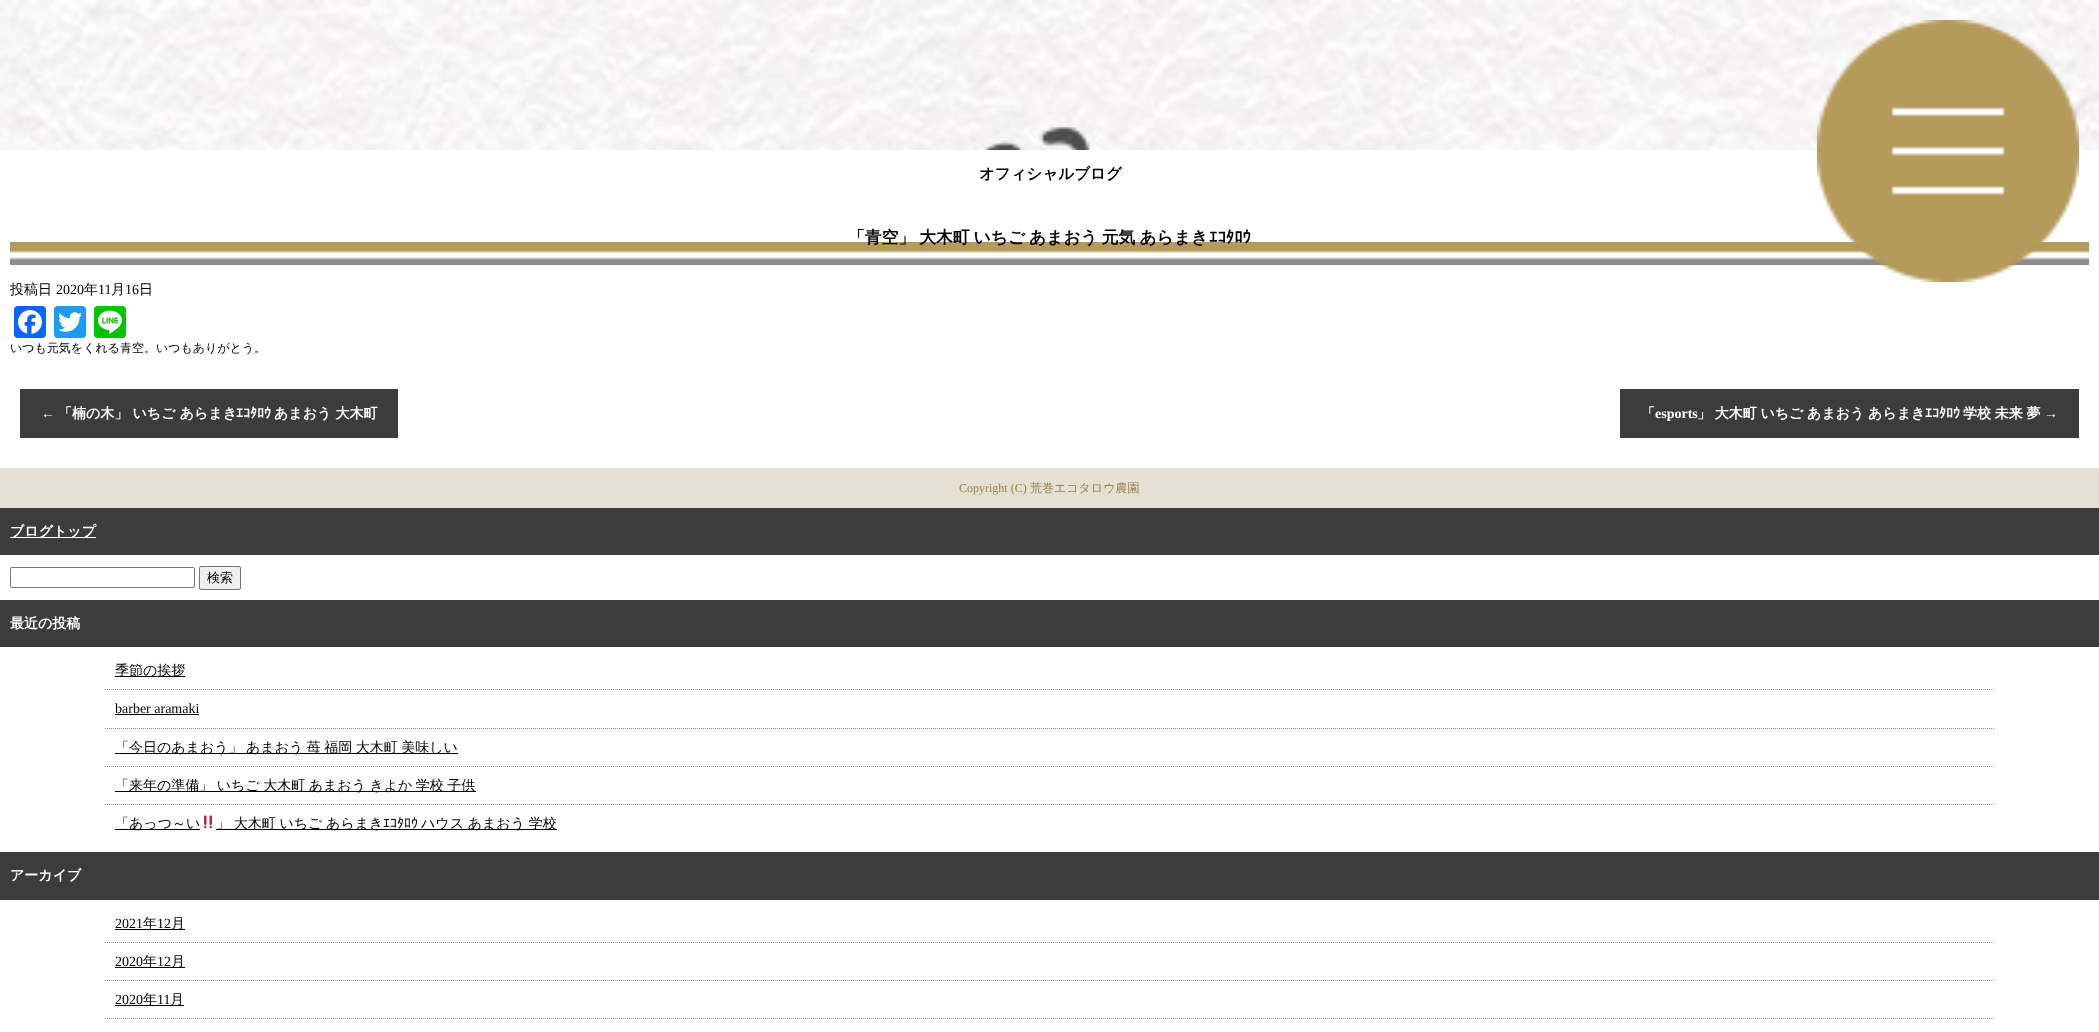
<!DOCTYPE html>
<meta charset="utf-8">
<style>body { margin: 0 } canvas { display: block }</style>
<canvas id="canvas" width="2099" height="1032"></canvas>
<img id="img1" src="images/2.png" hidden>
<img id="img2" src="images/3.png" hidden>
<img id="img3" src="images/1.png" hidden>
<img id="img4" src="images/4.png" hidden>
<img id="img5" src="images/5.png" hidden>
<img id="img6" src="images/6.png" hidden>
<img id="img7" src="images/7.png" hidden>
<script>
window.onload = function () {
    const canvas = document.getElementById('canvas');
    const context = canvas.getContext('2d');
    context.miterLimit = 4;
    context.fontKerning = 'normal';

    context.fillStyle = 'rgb(255, 255, 255)';
    context.fillRect(0, 0, 2099, 1032);
    context.drawImage(document.getElementById('img1'), 0, 0, 2099, 150);
    context.drawImage(document.getElementById('img2'), 10, 242, 2079, 23);
    context.drawImage(document.getElementById('img3'), 1817, 20, 262, 262);
    context.fillStyle = 'rgb(8, 102, 255)';
    context.beginPath();
    context.roundRect(14, 306, 32, 32, 4);
    context.fill();
    context.drawImage(document.getElementById('img4'), 18, 310, 24, 24);
    context.fillStyle = 'rgb(29, 155, 240)';
    context.beginPath();
    context.roundRect(54, 306, 32, 32, 4);
    context.fill();
    context.drawImage(document.getElementById('img5'), 58, 312, 24, 20);
    context.fillStyle = 'rgb(0, 195, 0)';
    context.beginPath();
    context.roundRect(94, 306, 32, 32, 4);
    context.fill();
    context.drawImage(document.getElementById('img6'), 98, 310, 24, 24);
    context.fillStyle = 'rgb(60, 60, 60)';
    context.fillRect(20, 389, 378, 49);
    context.fillRect(1620, 389, 459, 49);
    context.fillStyle = 'rgb(229, 224, 211)';
    context.fillRect(0, 468, 2099, 40);
    context.fillStyle = 'rgb(60, 60, 60)';
    context.fillRect(0, 508, 2099, 47);
    context.fillStyle = 'rgb(255, 255, 255)';
    context.fillRect(10, 537, 86, 1);
    context.beginPath();
    context.roundRect(10.5, 567.5, 184, 20, 1.5);
    context.strokeStyle = 'rgb(118, 118, 118)';
    context.stroke();
    context.fillStyle = 'rgb(239, 239, 239)';
    context.beginPath();
    context.roundRect(199.5, 566.5, 41, 23, 1.5);
    context.fill();
    context.stroke();
    context.fillStyle = 'rgb(60, 60, 60)';
    context.fillRect(0, 600, 2099, 47);
    context.beginPath();
    context.moveTo(105, 689.5);
    context.lineTo(1994, 689.5);
    context.strokeStyle = 'rgb(153, 153, 153)';
    context.setLineDash([1, 1]);
    context.stroke();
    context.fillStyle = 'rgb(0, 0, 0)';
    context.fillRect(115, 676, 70, 1);
    context.beginPath();
    context.moveTo(105, 728.5);
    context.lineTo(1994, 728.5);
    context.stroke();
    context.fillRect(115, 714, 84, 1);
    context.beginPath();
    context.moveTo(105, 766.5);
    context.lineTo(1994, 766.5);
    context.stroke();
    context.fillRect(115, 753, 343, 1);
    context.beginPath();
    context.moveTo(105, 804.5);
    context.lineTo(1994, 804.5);
    context.stroke();
    context.fillRect(115, 791, 361, 1);
    context.fillRect(115, 829, 85, 1);
    context.drawImage(document.getElementById('img7'), 204, 815, 8, 14);
    context.fillRect(216, 829, 341, 1);
    context.fillStyle = 'rgb(60, 60, 60)';
    context.fillRect(0, 852, 2099, 48);
    context.beginPath();
    context.moveTo(105, 942.5);
    context.lineTo(1994, 942.5);
    context.stroke();
    context.fillStyle = 'rgb(0, 0, 0)';
    context.fillRect(115, 929, 70, 1);
    context.beginPath();
    context.moveTo(105, 980.5);
    context.lineTo(1994, 980.5);
    context.stroke();
    context.fillRect(115, 967, 70, 1);
    context.beginPath();
    context.moveTo(105, 1018.5);
    context.lineTo(1994, 1018.5);
    context.stroke();
    context.fillRect(115, 1005, 69, 1);
    context.font = 'bold 15.5px WenQuanYi Zen Hei';
    context.fillText('オフィシャルブログ', 979, 179);
    context.wordSpacing = '-1px';
    context.font = 'bold 16.8px WenQuanYi Zen Hei';
    context.fillText('「青空」 大木町 いちご あまおう 元気 あらまき', 848, 243);
    context.wordSpacing = '0px';
    context.font = 'bold 16.8px IPAPGothic';
    context.fillText('ｴｺﾀﾛｳ', 1209, 243);
    context.font = '500 14px WenQuanYi Zen Hei';
    context.fillText('投稿日', 10, 294);
    context.font = '14px Liberation Serif';
    context.fillText('2020', 56, 294);
    context.font = '500 14px WenQuanYi Zen Hei';
    context.fillText('年', 84, 294);
    context.font = '14px Liberation Serif';
    context.fillText('11', 98, 294);
    context.font = '500 14px WenQuanYi Zen Hei';
    context.fillText('月', 111, 294);
    context.font = '14px Liberation Serif';
    context.fillText('16', 125, 294);
    context.font = '500 14px WenQuanYi Zen Hei';
    context.fillText('日', 139, 294);
    context.font = '500 12px WenQuanYi Zen Hei';
    context.fillText('いつも元気をくれる青空。いつもありがとう。', 10, 352);
    context.font = 'bold 14px Liberation Serif';
    context.fillStyle = 'rgb(255, 255, 255)';
    context.fillText('←', 41, 418);
    context.font = 'bold 14px WenQuanYi Zen Hei';
    context.fillText('「楠の木」 いちご あらまき', 58, 418);
    context.font = 'bold 14px IPAPGothic';
    context.fillText('ｴｺﾀﾛｳ', 236, 418);
    context.font = 'bold 14px WenQuanYi Zen Hei';
    context.fillText('あまおう 大木町', 274, 418);
    context.fillText('「', 1641, 418);
    context.font = 'bold 14px Liberation Serif';
    context.fillText('esports', 1655, 418);
    context.wordSpacing = '-0.5px';
    context.font = 'bold 14px WenQuanYi Zen Hei';
    context.fillText('」 大木町 いちご あまおう あらまき', 1697, 418);
    context.wordSpacing = '0px';
    context.font = 'bold 14px IPAPGothic';
    context.fillText('ｴｺﾀﾛｳ', 1925, 418);
    context.wordSpacing = '-0.5px';
    context.font = 'bold 14px WenQuanYi Zen Hei';
    context.fillText('学校 未来 夢', 1963, 418);
    context.wordSpacing = '0px';
    context.font = 'bold 14px Liberation Serif';
    context.fillText('→', 2044, 418);
    context.font = '12px Liberation Serif';
    context.fillStyle = 'rgb(151, 128, 73)';
    context.fillText('Copyright (C)', 959, 492);
    context.font = '500 12px WenQuanYi Zen Hei';
    context.fillText('荒巻エコタロウ農園', 1030, 492);
    context.font = 'bold 14px WenQuanYi Zen Hei';
    context.fillStyle = 'rgb(255, 255, 255)';
    context.fillText('ブログトップ', 10, 536);
    context.font = '500 13px WenQuanYi Zen Hei';
    context.fillStyle = 'rgb(0, 0, 0)';
    context.fillText('検索', 207, 582);
    context.font = 'bold 14px WenQuanYi Zen Hei';
    context.fillStyle = 'rgb(255, 255, 255)';
    context.fillText('最近の投稿', 10, 628);
    context.font = '500 14px WenQuanYi Zen Hei';
    context.fillStyle = 'rgb(0, 0, 0)';
    context.fillText('季節の挨拶', 115, 675);
    context.font = '14px Liberation Serif';
    context.fillText('barber aramaki', 115, 713);
    context.wordSpacing = '-0.75px';
    context.font = '500 14px WenQuanYi Zen Hei';
    context.fillText('「今日のあまおう」 あまおう 苺 福岡 大木町 美味しい', 115, 752);
    context.fillText('「来年の準備」 いちご 大木町 あまおう きよか 学校 子供', 115, 790);
    context.wordSpacing = '0px';
    context.fillText('「あっつ～い', 115, 828);
    context.wordSpacing = '-0.5px';
    context.fillText('」 大木町 いちご あらまき', 216, 828);
    context.wordSpacing = '0px';
    context.font = '14px IPAPGothic';
    context.fillText('ｴｺﾀﾛｳ', 383, 828);
    context.wordSpacing = '-0.5px';
    context.font = '500 14px WenQuanYi Zen Hei';
    context.fillText('ハウス あまおう 学校', 421, 828);
    context.wordSpacing = '0px';
    context.font = 'bold 14px WenQuanYi Zen Hei';
    context.fillStyle = 'rgb(255, 255, 255)';
    context.fillText('アーカイブ', 10, 880);
    context.font = '14px Liberation Serif';
    context.fillStyle = 'rgb(0, 0, 0)';
    context.fillText('2021', 115, 928);
    context.font = '500 14px WenQuanYi Zen Hei';
    context.fillText('年', 143, 928);
    context.font = '14px Liberation Serif';
    context.fillText('12', 157, 928);
    context.font = '500 14px WenQuanYi Zen Hei';
    context.fillText('月', 171, 928);
    context.font = '14px Liberation Serif';
    context.fillText('2020', 115, 966);
    context.font = '500 14px WenQuanYi Zen Hei';
    context.fillText('年', 143, 966);
    context.font = '14px Liberation Serif';
    context.fillText('12', 157, 966);
    context.font = '500 14px WenQuanYi Zen Hei';
    context.fillText('月', 171, 966);
    context.font = '14px Liberation Serif';
    context.fillText('2020', 115, 1004);
    context.font = '500 14px WenQuanYi Zen Hei';
    context.fillText('年', 143, 1004);
    context.font = '14px Liberation Serif';
    context.fillText('11', 157, 1004);
    context.font = '500 14px WenQuanYi Zen Hei';
    context.fillText('月', 170, 1004);
};
</script>
